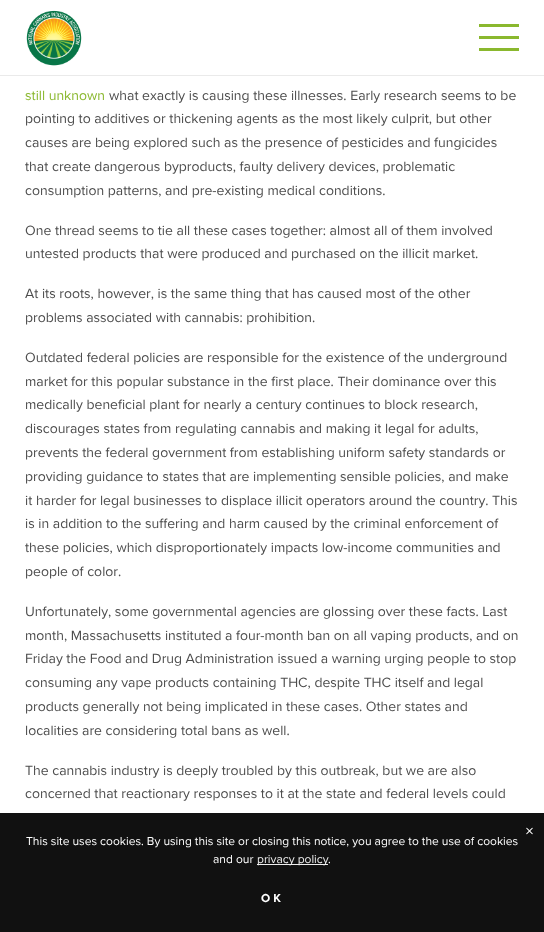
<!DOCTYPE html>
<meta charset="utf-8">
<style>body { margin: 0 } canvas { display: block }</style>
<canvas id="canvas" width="544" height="932"></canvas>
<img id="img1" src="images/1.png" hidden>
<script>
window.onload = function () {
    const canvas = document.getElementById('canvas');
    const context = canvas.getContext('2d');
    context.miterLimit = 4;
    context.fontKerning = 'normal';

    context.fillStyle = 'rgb(255, 255, 255)';
    context.fillRect(0, 0, 544, 932);
    context.fillStyle = 'rgb(234, 234, 234)';
    context.fillRect(0, 75, 544, 1);
    context.drawImage(document.getElementById('img1'), 26, 10, 56, 56);
    context.fillStyle = 'rgb(138, 184, 46)';
    context.fillRect(479, 24, 40, 3);
    context.fillRect(479, 36, 40, 3);
    context.fillRect(479, 48, 40, 3);
    context.fillStyle = 'rgb(17, 17, 17)';
    context.fillRect(0, 813, 544, 119);
    context.fillStyle = 'rgb(238, 238, 238)';
    context.fillRect(257, 864, 71, 1);
    context.font = '14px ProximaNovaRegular';
    context.fillStyle = 'rgb(138, 184, 46)';
    context.fillText('still unknown', 25, 100);
    context.fillStyle = 'rgb(77, 77, 77)';
    context.fillText('what exactly is causing these illnesses. Early research seems to be', 109, 100);
    context.fillText('pointing to additives or thickening agents as the most likely culprit, but other', 25, 123);
    context.fillText('causes are being explored such as the presence of pesticides and fungicides', 25, 147);
    context.fillText('that create dangerous byproducts, faulty delivery devices, problematic', 25, 171);
    context.fillText('consumption patterns, and pre-existing medical conditions.', 25, 195);
    context.fillText('One thread seems to tie all these cases together: almost all of them involved', 25, 235);
    context.fillText('untested products that were produced and purchased on the illicit market.', 25, 258);
    context.fillText('At its roots, however, is the same thing that has caused most of the other', 25, 298);
    context.fillText('problems associated with cannabis: prohibition.', 25, 322);
    context.fillText('Outdated federal policies are responsible for the existence of the underground', 25, 362);
    context.fillText('market for this popular substance in the first place. Their dominance over this', 25, 386);
    context.fillText('medically beneficial plant for nearly a century continues to block research,', 25, 409);
    context.fillText('discourages states from regulating cannabis and making it legal for adults,', 25, 433);
    context.fillText('prevents the federal government from establishing uniform safety standards or', 25, 457);
    context.fillText('providing guidance to states that are implementing sensible policies, and make', 25, 481);
    context.fillText('it harder for legal businesses to displace illicit operators around the country. This', 25, 505);
    context.fillText('is in addition to the suffering and harm caused by the criminal enforcement of', 25, 528);
    context.fillText('these policies, which disproportionately impacts low-income communities and', 25, 552);
    context.fillText('people of color.', 25, 576);
    context.fillText('Unfortunately, some governmental agencies are glossing over these facts. Last', 25, 616);
    context.fillText('month, Massachusetts instituted a four-month ban on all vaping products, and on', 25, 640);
    context.fillText('Friday the Food and Drug Administration issued a warning urging people to stop', 25, 663);
    context.fillText('consuming any vape products containing THC, despite THC itself and legal', 25, 687);
    context.fillText('products generally not being implicated in these cases. Other states and', 25, 711);
    context.fillText('localities are considering total bans as well.', 25, 735);
    context.fillText('The cannabis industry is deeply troubled by this outbreak, but we are also', 25, 775);
    context.fillText('concerned that reactionary responses to it at the state and federal levels could', 25, 798);
    context.font = '18px ProximaNovaRegular';
    context.fillStyle = 'rgb(255, 255, 255)';
    context.fillText('×', 525, 837);
    context.font = '12px ProximaNovaRegular';
    context.fillText('This site uses cookies. By using this site or closing this notice, you agree to the use of cookies', 26, 845);
    context.fillText('and our', 213, 863);
    context.fillStyle = 'rgb(238, 238, 238)';
    context.fillText('privacy policy', 257, 863);
    context.fillStyle = 'rgb(255, 255, 255)';
    context.fillText('.', 328, 863);
    context.letterSpacing = '3px';
    context.font = '12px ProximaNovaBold';
    context.fillText('OK', 261, 902);
};
</script>
